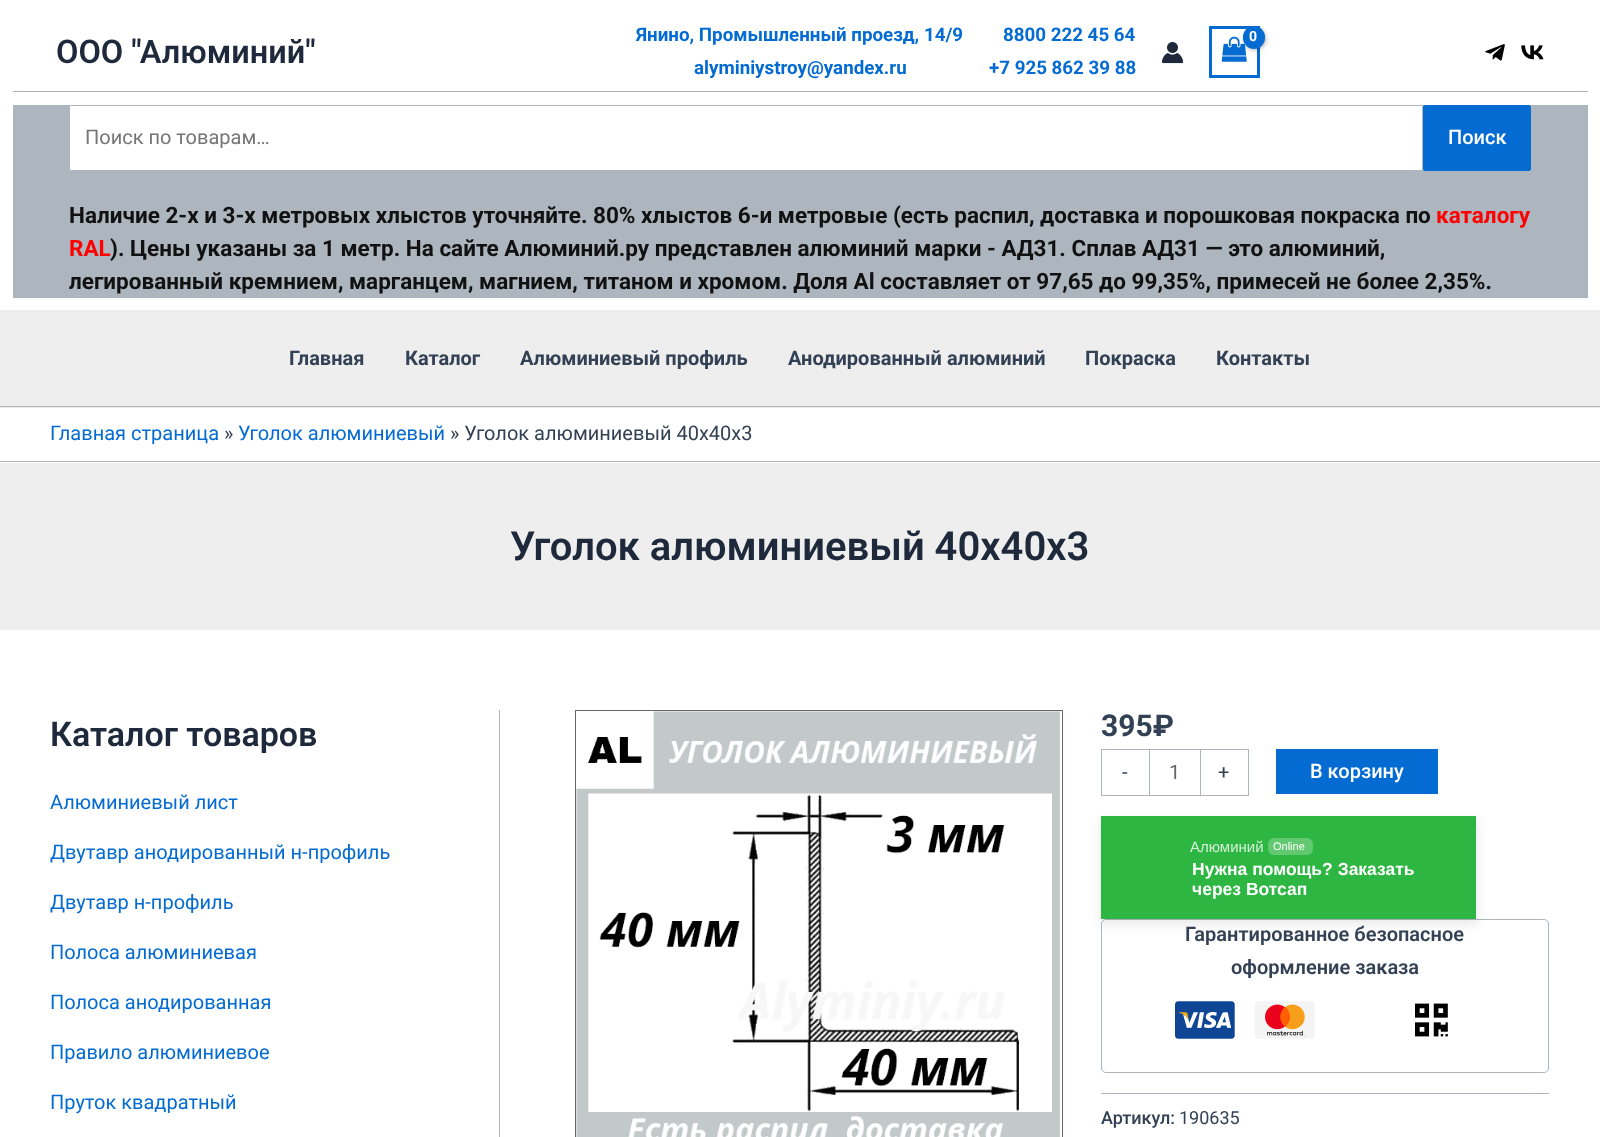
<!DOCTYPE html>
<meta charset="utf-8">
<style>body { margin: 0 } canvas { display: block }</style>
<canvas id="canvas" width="1600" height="1137"></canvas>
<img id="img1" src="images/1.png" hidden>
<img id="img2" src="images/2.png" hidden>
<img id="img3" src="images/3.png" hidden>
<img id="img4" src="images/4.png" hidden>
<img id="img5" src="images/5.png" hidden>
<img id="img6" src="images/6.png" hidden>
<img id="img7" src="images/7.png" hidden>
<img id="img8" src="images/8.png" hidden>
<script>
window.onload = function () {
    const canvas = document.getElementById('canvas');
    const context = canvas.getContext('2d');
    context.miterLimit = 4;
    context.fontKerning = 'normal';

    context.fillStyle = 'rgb(255, 255, 255)';
    context.fillRect(0, 0, 1600, 1137);
    context.fillStyle = 'rgb(173, 182, 190)';
    context.fillRect(13, 91, 1575, 1);
    context.strokeStyle = 'rgb(4, 107, 210)';
    context.lineWidth = 3;
    context.strokeRect(1210.5, 27.5, 48, 49);
    context.drawImage(document.getElementById('img1'), 1221, 36, 26, 26);
    context.fillStyle = 'rgba(0, 0, 0, 0.3)';
    context.filter = 'blur(2px)';
    context.beginPath();
    context.roundRect(1244, 28, 22, 22, 11);
    context.fill();
    context.filter = 'none';
    context.fillStyle = 'rgb(4, 107, 210)';
    context.beginPath();
    context.roundRect(1243, 26, 22, 23, 11);
    context.fill();
    context.drawImage(document.getElementById('img2'), 1162, 42, 22, 22);
    context.drawImage(document.getElementById('img3'), 1485, 44, 20, 17);
    context.drawImage(document.getElementById('img4'), 1521, 45, 23, 15);
    context.fillStyle = 'rgb(173, 182, 190)';
    context.fillRect(13, 105, 1575, 193);
    context.fillStyle = 'rgb(255, 255, 255)';
    context.fillRect(70, 106, 1352, 64);
    context.fillStyle = 'rgb(4, 107, 210)';
    context.beginPath();
    context.roundRect(1423, 105, 108, 66, 2.5);
    context.fill();
    context.fillStyle = 'rgb(238, 238, 238)';
    context.fillRect(0, 310, 1600, 98);
    context.fillStyle = 'rgb(173, 182, 190)';
    context.fillRect(0, 406, 1600, 1);
    context.fillRect(0, 461, 1600, 1);
    context.fillStyle = 'rgb(238, 238, 238)';
    context.fillRect(0, 463, 1600, 167);
    context.fillStyle = 'rgb(173, 182, 190)';
    context.fillRect(499, 710, 1, 427);
    context.strokeStyle = 'rgb(102, 102, 102)';
    context.lineWidth = 1;
    context.strokeRect(575.5, 710.5, 487, 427);
    context.drawImage(document.getElementById('img5'), 576, 711, 484, 426);
    context.fillRect(1101, 749, 48, 1);
    context.fillRect(1101, 795, 48, 1);
    context.fillRect(1101, 749, 1, 47);
    context.strokeStyle = 'rgb(173, 182, 190)';
    context.strokeRect(1149.5, 749.5, 51, 46);
    context.fillRect(1201, 749, 48, 1);
    context.fillRect(1248, 749, 1, 47);
    context.fillRect(1201, 795, 48, 1);
    context.fillStyle = 'rgb(4, 107, 210)';
    context.fillRect(1276, 749, 162, 45);
    context.beginPath();
    context.roundRect(1101.5, 919.5, 447, 153, 4.5);
    context.stroke();
    context.fillStyle = 'rgba(32, 32, 37, 0.09)';
    context.filter = 'blur(5px)';
    context.beginPath();
    context.rect(1100, 820, 378, 105);
    context.fill();
    context.filter = 'none';
    context.fillStyle = 'rgb(45, 183, 66)';
    context.fillRect(1101, 816, 375, 103);
    context.fillStyle = 'rgb(98, 201, 113)';
    context.beginPath();
    context.roundRect(1268, 838, 45, 17, 6);
    context.fill();
    context.drawImage(document.getElementById('img6'), 1175, 1001, 60, 38);
    context.drawImage(document.getElementById('img7'), 1255, 1001, 60, 38);
    context.drawImage(document.getElementById('img8'), 1415, 1003, 33, 34);
    context.fillStyle = 'rgb(173, 182, 190)';
    context.fillRect(1101, 1093, 448, 1);
    context.font = '600 32.5px Roboto';
    context.fillStyle = 'rgb(30, 41, 59)';
    context.fillText('ООО "Алюминий"', 56, 63);
    context.font = 'bold 18.75px Roboto';
    context.fillStyle = 'rgb(4, 107, 210)';
    context.fillText('Янино, Промышленный проезд, 14/9', 636, 41);
    context.fillText('alyminiystroy@yandex.ru', 694, 74);
    context.fillText('8800 222 45 64', 1003, 41);
    context.fillText('+7 925 862 39 88', 989, 74);
    context.letterSpacing = '-1px';
    context.font = 'bold 14px Roboto';
    context.fillStyle = 'rgb(255, 255, 255)';
    context.fillText('0', 1249, 41);
    context.letterSpacing = '0px';
    context.font = '20px Roboto';
    context.fillStyle = 'rgb(117, 117, 117)';
    context.fillText('Поиск по товарам…', 85, 144);
    context.font = '500 20px Roboto';
    context.fillStyle = 'rgb(255, 255, 255)';
    context.fillText('Поиск', 1448, 144);
    context.font = 'bold 22.5px Roboto';
    context.fillStyle = 'rgb(17, 17, 17)';
    context.fillText('Наличие 2-х и 3-х метровых хлыстов уточняйте. 80% хлыстов 6-и метровые (есть распил, доставка и порошковая покраска по', 69, 223);
    context.fillStyle = 'rgb(255, 0, 0)';
    context.fillText('каталогу', 1436, 223);
    context.fillText('RAL', 69, 256);
    context.fillStyle = 'rgb(17, 17, 17)';
    context.fillText('). Цены указаны за 1 метр. На сайте Алюминий.ру представлен алюминий марки - АД31. Сплав АД31 — это алюминий,', 110, 256);
    context.fillText('легированный кремнием, марганцем, магнием, титаном и хромом. Доля Al составляет от 97,65 до 99,35%, примесей не более 2,35%.', 69, 289);
    context.font = 'bold 20px Roboto';
    context.fillStyle = 'rgb(51, 65, 85)';
    context.fillText('Главная', 289, 365);
    context.fillText('Каталог', 405, 365);
    context.fillText('Алюминиевый профиль', 520, 365);
    context.fillText('Анодированный алюминий', 788, 365);
    context.fillText('Покраска', 1085, 365);
    context.fillText('Контакты', 1216, 365);
    context.font = '20px Roboto';
    context.fillStyle = 'rgb(4, 107, 210)';
    context.fillText('Главная страница', 50, 440);
    context.fillStyle = 'rgb(51, 65, 85)';
    context.fillText('»', 224, 440);
    context.fillStyle = 'rgb(4, 107, 210)';
    context.fillText('Уголок алюминиевый', 238, 440);
    context.fillStyle = 'rgb(51, 65, 85)';
    context.fillText('» Уголок алюминиевый 40х40х3', 450, 440);
    context.font = '600 40px Roboto';
    context.fillStyle = 'rgb(30, 41, 59)';
    context.fillText('Уголок алюминиевый 40х40х3', 510, 560);
    context.font = '600 34px Roboto';
    context.fillText('Каталог товаров', 50, 746);
    context.font = '20px Roboto';
    context.fillStyle = 'rgb(4, 107, 210)';
    context.fillText('Алюминиевый лист', 50, 809);
    context.fillText('Двутавр анодированный н-профиль', 50, 859);
    context.fillText('Двутавр н-профиль', 50, 909);
    context.fillText('Полоса алюминиевая', 50, 959);
    context.fillText('Полоса анодированная', 50, 1009);
    context.fillText('Правило алюминиевое', 50, 1059);
    context.fillText('Пруток квадратный', 50, 1109);
    context.font = 'bold 30px Roboto';
    context.fillStyle = 'rgb(51, 65, 85)';
    context.fillText('395₽', 1101, 736);
    context.font = '20px Roboto';
    context.fillText('-', 1122, 779);
    context.fillStyle = 'rgb(102, 102, 102)';
    context.fillText('1', 1169, 779);
    context.fillStyle = 'rgb(51, 65, 85)';
    context.fillText('+', 1218, 779);
    context.font = '500 20px Roboto';
    context.fillStyle = 'rgb(255, 255, 255)';
    context.fillText('В корзину', 1310, 778);
    context.font = '15px Liberation Sans';
    context.fillStyle = 'rgb(213, 240, 217)';
    context.fillText('Алюминий', 1190, 852);
    context.font = '11px Liberation Sans';
    context.fillStyle = 'rgb(255, 255, 255)';
    context.fillText('Online', 1273, 850);
    context.font = 'bold 17.5px Liberation Sans';
    context.fillText('Нужна помощь? Заказать', 1192, 875);
    context.fillText('через Вотсап', 1192, 895);
    context.font = '600 20px Roboto';
    context.fillStyle = 'rgb(51, 65, 85)';
    context.fillText('Гарантированное безопасное', 1185, 941);
    context.fillText('оформление заказа', 1231, 974);
    context.font = '500 18px Roboto';
    context.fillText('Артикул:', 1101, 1124);
    context.font = '18px Roboto';
    context.fillText('190635', 1179, 1124);
};
</script>
